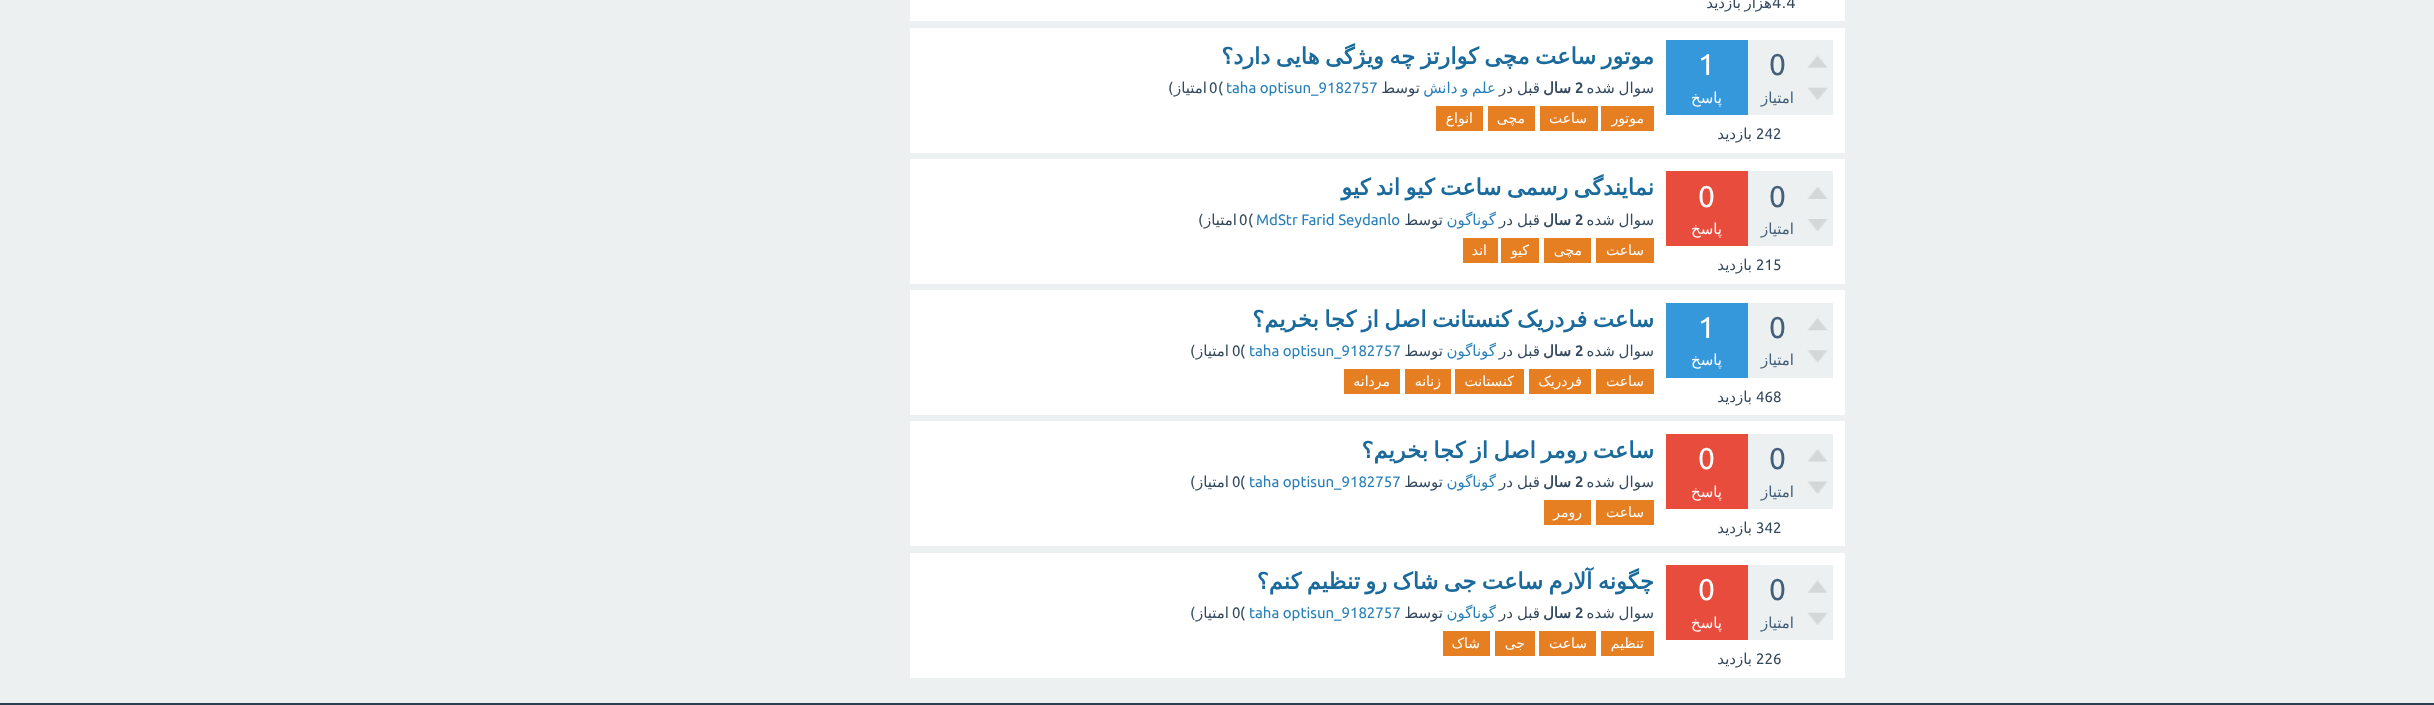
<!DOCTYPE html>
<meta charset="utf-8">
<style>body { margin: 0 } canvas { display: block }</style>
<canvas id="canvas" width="2434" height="705"></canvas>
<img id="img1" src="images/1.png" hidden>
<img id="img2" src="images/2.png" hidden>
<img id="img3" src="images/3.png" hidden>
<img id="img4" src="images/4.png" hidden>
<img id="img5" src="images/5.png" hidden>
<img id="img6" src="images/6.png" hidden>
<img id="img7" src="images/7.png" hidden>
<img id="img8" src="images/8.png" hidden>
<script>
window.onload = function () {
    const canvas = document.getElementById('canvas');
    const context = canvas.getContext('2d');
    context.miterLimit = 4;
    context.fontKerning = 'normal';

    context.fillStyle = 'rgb(236, 240, 241)';
    context.fillRect(0, 0, 2434, 705);
    context.fillStyle = 'rgb(255, 255, 255)';
    context.fillRect(910, 0, 935, 21);
    context.fillRect(910, 28, 935, 125);
    context.fillStyle = 'rgb(236, 240, 241)';
    context.fillRect(1748, 40, 85, 75);
    context.drawImage(document.getElementById('img1'), 1807, 55, 21, 13);
    context.drawImage(document.getElementById('img2'), 1807, 87, 21, 13);
    context.fillStyle = 'rgb(52, 152, 219)';
    context.fillRect(1666, 40, 82, 75);
    context.fillStyle = 'rgb(230, 126, 34)';
    context.fillRect(1601, 106, 53, 25);
    context.fillRect(1540, 106, 58, 25);
    context.fillRect(1488, 106, 47, 25);
    context.fillRect(1436, 106, 47, 25);
    context.fillStyle = 'rgb(255, 255, 255)';
    context.fillRect(910, 159, 935, 125);
    context.fillStyle = 'rgb(236, 240, 241)';
    context.fillRect(1748, 171, 85, 75);
    context.drawImage(document.getElementById('img3'), 1807, 187, 21, 12);
    context.drawImage(document.getElementById('img4'), 1807, 219, 21, 12);
    context.fillStyle = 'rgb(231, 76, 60)';
    context.fillRect(1666, 171, 82, 75);
    context.fillStyle = 'rgb(230, 126, 34)';
    context.fillRect(1596, 238, 58, 25);
    context.fillRect(1544, 238, 47, 25);
    context.fillRect(1501, 238, 38, 25);
    context.fillRect(1463, 238, 35, 25);
    context.fillStyle = 'rgb(255, 255, 255)';
    context.fillRect(910, 290, 935, 125);
    context.fillStyle = 'rgb(236, 240, 241)';
    context.fillRect(1748, 303, 85, 75);
    context.drawImage(document.getElementById('img5'), 1807, 318, 21, 13);
    context.drawImage(document.getElementById('img6'), 1807, 350, 21, 13);
    context.fillStyle = 'rgb(52, 152, 219)';
    context.fillRect(1666, 303, 82, 75);
    context.fillStyle = 'rgb(230, 126, 34)';
    context.fillRect(1596, 369, 58, 25);
    context.fillRect(1529, 369, 62, 25);
    context.fillRect(1455, 369, 69, 25);
    context.fillRect(1405, 369, 46, 25);
    context.fillRect(1344, 369, 56, 25);
    context.fillStyle = 'rgb(255, 255, 255)';
    context.fillRect(910, 421, 935, 125);
    context.fillStyle = 'rgb(236, 240, 241)';
    context.fillRect(1748, 434, 85, 75);
    context.drawImage(document.getElementById('img7'), 1808, 449, 19, 13);
    context.drawImage(document.getElementById('img8'), 1807, 481, 21, 13);
    context.fillStyle = 'rgb(231, 76, 60)';
    context.fillRect(1666, 434, 82, 75);
    context.fillStyle = 'rgb(230, 126, 34)';
    context.fillRect(1596, 500, 58, 25);
    context.fillRect(1544, 500, 47, 25);
    context.fillStyle = 'rgb(255, 255, 255)';
    context.fillRect(910, 553, 935, 125);
    context.fillStyle = 'rgb(236, 240, 241)';
    context.fillRect(1748, 565, 85, 75);
    context.drawImage(document.getElementById('img1'), 1807, 580, 21, 13);
    context.drawImage(document.getElementById('img2'), 1807, 612, 21, 13);
    context.fillStyle = 'rgb(231, 76, 60)';
    context.fillRect(1666, 565, 82, 75);
    context.fillStyle = 'rgb(230, 126, 34)';
    context.fillRect(1601, 631, 53, 25);
    context.fillRect(1539, 631, 57, 25);
    context.fillRect(1495, 631, 40, 25);
    context.fillRect(1443, 631, 47, 25);
    context.fillStyle = 'rgb(44, 62, 80)';
    context.fillRect(0, 703, 2434, 2);
    context.font = '15px DejaVu Sans';
    context.fillStyle = 'rgb(52, 73, 94)';
    context.fillText('4.4', 1772, 8);
    context.direction = 'rtl';
    context.fillText('هزار', 1772, 8);
    context.fillText('بازدید', 1741, 8);
    context.direction = 'ltr';
    context.font = '30px Ubuntu';
    context.fillStyle = 'rgb(68, 95, 122)';
    context.fillText('0', 1769, 75);
    context.direction = 'rtl';
    context.font = '15px DejaVu Sans';
    context.fillText('امتیاز', 1794, 103);
    context.direction = 'ltr';
    context.font = '30px Ubuntu';
    context.fillStyle = 'rgb(255, 255, 255)';
    context.fillText('1', 1698, 75);
    context.direction = 'rtl';
    context.font = '15px DejaVu Sans';
    context.fillText('پاسخ', 1722, 103);
    context.direction = 'ltr';
    context.font = '15px Ubuntu';
    context.fillStyle = 'rgb(52, 73, 94)';
    context.fillText('242', 1756, 139);
    context.direction = 'rtl';
    context.font = '15px DejaVu Sans';
    context.fillText('بازدید', 1752, 139);
    context.wordSpacing = '-1.75px';
    context.font = 'bold 22.5px DejaVu Sans';
    context.fillStyle = 'rgb(26, 106, 155)';
    context.fillText('موتور ساعت مچی کوارتز چه ویژگی هایی دارد؟', 1654, 64);
    context.wordSpacing = '-1px';
    context.font = '15px DejaVu Sans';
    context.fillStyle = 'rgb(52, 73, 94)';
    context.fillText('سوال شده', 1654, 93);
    context.wordSpacing = '0px';
    context.direction = 'ltr';
    context.font = 'bold 15px Ubuntu';
    context.fillText('2', 1575, 93);
    context.direction = 'rtl';
    context.font = 'bold 15px DejaVu Sans';
    context.fillText('سال', 1571, 93);
    context.font = '15px DejaVu Sans';
    context.fillText('قبل', 1540, 93);
    context.fillText('در', 1513, 93);
    context.wordSpacing = '-1px';
    context.fillStyle = 'rgb(41, 128, 185)';
    context.fillText('علم و دانش', 1496, 93);
    context.wordSpacing = '0px';
    context.fillStyle = 'rgb(52, 73, 94)';
    context.fillText('توسط', 1420, 93);
    context.direction = 'ltr';
    context.font = '15px Ubuntu';
    context.fillStyle = 'rgb(41, 128, 185)';
    context.fillText('taha optisun_9182757', 1226, 93);
    context.fillStyle = 'rgb(52, 73, 94)';
    context.fillText('(', 1218, 93);
    context.fillText('0', 1209, 93);
    context.direction = 'rtl';
    context.font = '15px DejaVu Sans';
    context.fillText('امتیاز)', 1207, 93);
    context.font = '14px DejaVu Sans';
    context.fillStyle = 'rgb(255, 255, 255)';
    context.fillText('موتور', 1644, 123);
    context.fillText('ساعت', 1587, 123);
    context.fillText('مچی', 1525, 123);
    context.fillText('انواع', 1473, 123);
    context.direction = 'ltr';
    context.font = '30px Ubuntu';
    context.fillStyle = 'rgb(68, 95, 122)';
    context.fillText('0', 1769, 207);
    context.direction = 'rtl';
    context.font = '15px DejaVu Sans';
    context.fillText('امتیاز', 1794, 234);
    context.direction = 'ltr';
    context.font = '30px Ubuntu';
    context.fillStyle = 'rgb(255, 255, 255)';
    context.fillText('0', 1698, 207);
    context.direction = 'rtl';
    context.font = '15px DejaVu Sans';
    context.fillText('پاسخ', 1722, 234);
    context.direction = 'ltr';
    context.font = '15px Ubuntu';
    context.fillStyle = 'rgb(52, 73, 94)';
    context.fillText('215', 1756, 270);
    context.direction = 'rtl';
    context.font = '15px DejaVu Sans';
    context.fillText('بازدید', 1752, 270);
    context.wordSpacing = '-1.75px';
    context.font = 'bold 22.5px DejaVu Sans';
    context.fillStyle = 'rgb(26, 106, 155)';
    context.fillText('نمایندگی رسمی ساعت کیو اند کیو', 1654, 195);
    context.wordSpacing = '-1px';
    context.font = '15px DejaVu Sans';
    context.fillStyle = 'rgb(52, 73, 94)';
    context.fillText('سوال شده', 1654, 225);
    context.wordSpacing = '0px';
    context.direction = 'ltr';
    context.font = 'bold 15px Ubuntu';
    context.fillText('2', 1575, 225);
    context.direction = 'rtl';
    context.font = 'bold 15px DejaVu Sans';
    context.fillText('سال', 1571, 225);
    context.font = '15px DejaVu Sans';
    context.fillText('قبل', 1540, 225);
    context.fillText('در', 1513, 225);
    context.fillStyle = 'rgb(41, 128, 185)';
    context.fillText('گوناگون', 1496, 225);
    context.fillStyle = 'rgb(52, 73, 94)';
    context.fillText('توسط', 1443, 225);
    context.direction = 'ltr';
    context.font = '15px Ubuntu';
    context.fillStyle = 'rgb(41, 128, 185)';
    context.fillText('MdStr Farid Seydanlo', 1256, 225);
    context.fillStyle = 'rgb(52, 73, 94)';
    context.fillText('(', 1248, 225);
    context.fillText('0', 1239, 225);
    context.direction = 'rtl';
    context.font = '15px DejaVu Sans';
    context.fillText('امتیاز)', 1237, 225);
    context.font = '14px DejaVu Sans';
    context.fillStyle = 'rgb(255, 255, 255)';
    context.fillText('ساعت', 1644, 255);
    context.fillText('مچی', 1582, 255);
    context.fillText('کیو', 1529, 255);
    context.fillText('اند', 1487, 255);
    context.direction = 'ltr';
    context.font = '30px Ubuntu';
    context.fillStyle = 'rgb(68, 95, 122)';
    context.fillText('0', 1769, 338);
    context.direction = 'rtl';
    context.font = '15px DejaVu Sans';
    context.fillText('امتیاز', 1794, 365);
    context.direction = 'ltr';
    context.font = '30px Ubuntu';
    context.fillStyle = 'rgb(255, 255, 255)';
    context.fillText('1', 1698, 338);
    context.direction = 'rtl';
    context.font = '15px DejaVu Sans';
    context.fillText('پاسخ', 1722, 365);
    context.direction = 'ltr';
    context.font = '15px Ubuntu';
    context.fillStyle = 'rgb(52, 73, 94)';
    context.fillText('468', 1756, 402);
    context.direction = 'rtl';
    context.font = '15px DejaVu Sans';
    context.fillText('بازدید', 1752, 402);
    context.wordSpacing = '-1.75px';
    context.font = 'bold 22.5px DejaVu Sans';
    context.fillStyle = 'rgb(26, 106, 155)';
    context.fillText('ساعت فردریک کنستانت اصل از کجا بخریم؟', 1654, 327);
    context.wordSpacing = '-1px';
    context.font = '15px DejaVu Sans';
    context.fillStyle = 'rgb(52, 73, 94)';
    context.fillText('سوال شده', 1654, 356);
    context.wordSpacing = '0px';
    context.direction = 'ltr';
    context.font = 'bold 15px Ubuntu';
    context.fillText('2', 1575, 356);
    context.direction = 'rtl';
    context.font = 'bold 15px DejaVu Sans';
    context.fillText('سال', 1571, 356);
    context.font = '15px DejaVu Sans';
    context.fillText('قبل', 1540, 356);
    context.fillText('در', 1513, 356);
    context.fillStyle = 'rgb(41, 128, 185)';
    context.fillText('گوناگون', 1496, 356);
    context.fillStyle = 'rgb(52, 73, 94)';
    context.fillText('توسط', 1443, 356);
    context.direction = 'ltr';
    context.font = '15px Ubuntu';
    context.fillStyle = 'rgb(41, 128, 185)';
    context.fillText('taha optisun_9182757', 1249, 356);
    context.fillStyle = 'rgb(52, 73, 94)';
    context.fillText('(', 1240, 356);
    context.fillText('0', 1232, 356);
    context.direction = 'rtl';
    context.font = '15px DejaVu Sans';
    context.fillText('امتیاز)', 1229, 356);
    context.font = '14px DejaVu Sans';
    context.fillStyle = 'rgb(255, 255, 255)';
    context.fillText('ساعت', 1644, 386);
    context.fillText('فردریک', 1582, 386);
    context.fillText('کنستانت', 1514, 386);
    context.fillText('زنانه', 1441, 386);
    context.fillText('مردانه', 1390, 386);
    context.direction = 'ltr';
    context.font = '30px Ubuntu';
    context.fillStyle = 'rgb(68, 95, 122)';
    context.fillText('0', 1769, 469);
    context.direction = 'rtl';
    context.font = '15px DejaVu Sans';
    context.fillText('امتیاز', 1794, 497);
    context.direction = 'ltr';
    context.font = '30px Ubuntu';
    context.fillStyle = 'rgb(255, 255, 255)';
    context.fillText('0', 1698, 469);
    context.direction = 'rtl';
    context.font = '15px DejaVu Sans';
    context.fillText('پاسخ', 1722, 497);
    context.direction = 'ltr';
    context.font = '15px Ubuntu';
    context.fillStyle = 'rgb(52, 73, 94)';
    context.fillText('342', 1756, 533);
    context.direction = 'rtl';
    context.font = '15px DejaVu Sans';
    context.fillText('بازدید', 1752, 533);
    context.wordSpacing = '-1.75px';
    context.font = 'bold 22.5px DejaVu Sans';
    context.fillStyle = 'rgb(26, 106, 155)';
    context.fillText('ساعت رومر اصل از کجا بخریم؟', 1654, 458);
    context.wordSpacing = '-1px';
    context.font = '15px DejaVu Sans';
    context.fillStyle = 'rgb(52, 73, 94)';
    context.fillText('سوال شده', 1654, 487);
    context.wordSpacing = '0px';
    context.direction = 'ltr';
    context.font = 'bold 15px Ubuntu';
    context.fillText('2', 1575, 487);
    context.direction = 'rtl';
    context.font = 'bold 15px DejaVu Sans';
    context.fillText('سال', 1571, 487);
    context.font = '15px DejaVu Sans';
    context.fillText('قبل', 1540, 487);
    context.fillText('در', 1513, 487);
    context.fillStyle = 'rgb(41, 128, 185)';
    context.fillText('گوناگون', 1496, 487);
    context.fillStyle = 'rgb(52, 73, 94)';
    context.fillText('توسط', 1443, 487);
    context.direction = 'ltr';
    context.font = '15px Ubuntu';
    context.fillStyle = 'rgb(41, 128, 185)';
    context.fillText('taha optisun_9182757', 1249, 487);
    context.fillStyle = 'rgb(52, 73, 94)';
    context.fillText('(', 1240, 487);
    context.fillText('0', 1232, 487);
    context.direction = 'rtl';
    context.font = '15px DejaVu Sans';
    context.fillText('امتیاز)', 1229, 487);
    context.font = '14px DejaVu Sans';
    context.fillStyle = 'rgb(255, 255, 255)';
    context.fillText('ساعت', 1644, 517);
    context.fillText('رومر', 1582, 517);
    context.direction = 'ltr';
    context.font = '30px Ubuntu';
    context.fillStyle = 'rgb(68, 95, 122)';
    context.fillText('0', 1769, 600);
    context.direction = 'rtl';
    context.font = '15px DejaVu Sans';
    context.fillText('امتیاز', 1794, 628);
    context.direction = 'ltr';
    context.font = '30px Ubuntu';
    context.fillStyle = 'rgb(255, 255, 255)';
    context.fillText('0', 1698, 600);
    context.direction = 'rtl';
    context.font = '15px DejaVu Sans';
    context.fillText('پاسخ', 1722, 628);
    context.direction = 'ltr';
    context.font = '15px Ubuntu';
    context.fillStyle = 'rgb(52, 73, 94)';
    context.fillText('226', 1756, 664);
    context.direction = 'rtl';
    context.font = '15px DejaVu Sans';
    context.fillText('بازدید', 1752, 664);
    context.wordSpacing = '-1.75px';
    context.font = 'bold 22.5px DejaVu Sans';
    context.fillStyle = 'rgb(26, 106, 155)';
    context.fillText('چگونه آلارم ساعت جی شاک رو تنظیم کنم؟', 1654, 589);
    context.wordSpacing = '-1px';
    context.font = '15px DejaVu Sans';
    context.fillStyle = 'rgb(52, 73, 94)';
    context.fillText('سوال شده', 1654, 618);
    context.wordSpacing = '0px';
    context.direction = 'ltr';
    context.font = 'bold 15px Ubuntu';
    context.fillText('2', 1575, 618);
    context.direction = 'rtl';
    context.font = 'bold 15px DejaVu Sans';
    context.fillText('سال', 1571, 618);
    context.font = '15px DejaVu Sans';
    context.fillText('قبل', 1540, 618);
    context.fillText('در', 1513, 618);
    context.fillStyle = 'rgb(41, 128, 185)';
    context.fillText('گوناگون', 1496, 618);
    context.fillStyle = 'rgb(52, 73, 94)';
    context.fillText('توسط', 1443, 618);
    context.direction = 'ltr';
    context.font = '15px Ubuntu';
    context.fillStyle = 'rgb(41, 128, 185)';
    context.fillText('taha optisun_9182757', 1249, 618);
    context.fillStyle = 'rgb(52, 73, 94)';
    context.fillText('(', 1240, 618);
    context.fillText('0', 1232, 618);
    context.direction = 'rtl';
    context.font = '15px DejaVu Sans';
    context.fillText('امتیاز)', 1229, 618);
    context.font = '14px DejaVu Sans';
    context.fillStyle = 'rgb(255, 255, 255)';
    context.fillText('تنظیم', 1644, 648);
    context.fillText('ساعت', 1587, 648);
    context.fillText('جی', 1525, 648);
    context.fillText('شاک', 1480, 648);
};
</script>
